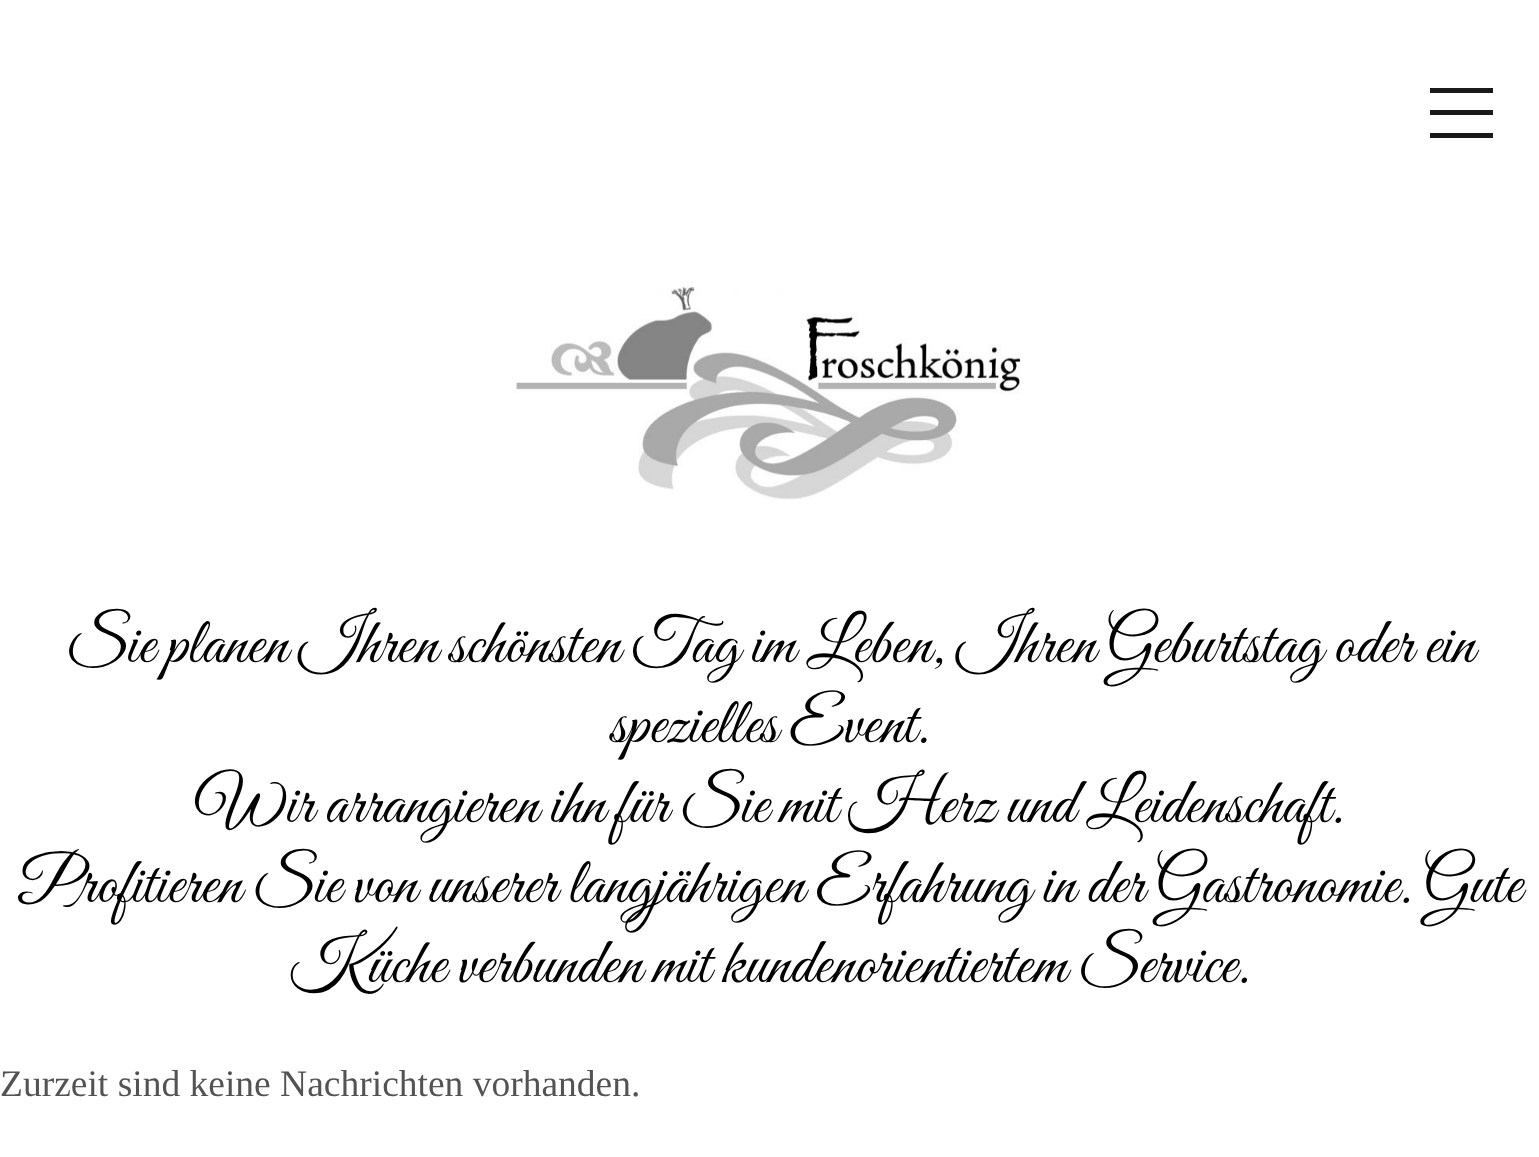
<!DOCTYPE html>
<meta charset="utf-8">
<style>body { margin: 0 } canvas { display: block }</style>
<canvas id="canvas" width="1539" height="1157"></canvas>
<img id="img1" src="images/1.png" hidden>
<script>
window.onload = function () {
    const canvas = document.getElementById('canvas');
    const context = canvas.getContext('2d');
    context.miterLimit = 4;
    context.fontKerning = 'normal';

    context.fillStyle = 'rgb(255, 255, 255)';
    context.fillRect(0, 0, 1539, 1157);
    context.fillStyle = 'rgb(26, 26, 26)';
    context.fillRect(1430, 110, 63, 5);
    context.fillRect(1430, 88, 63, 5);
    context.fillRect(1430, 133, 63, 5);
    context.drawImage(document.getElementById('img1'), 515, 282, 507, 218);
    context.font = '65px Great Vibes';
    context.fillStyle = 'rgb(0, 0, 0)';
    context.fillText('Sie planen Ihren schönsten Tag im Leben, Ihren Geburtstag oder ein', 66, 662);
    context.fillText('spezielles Event.', 610, 742);
    context.fillText('Wir arrangieren ihn für Sie mit Herz und Leidenschaft.', 196, 822);
    context.fillText('Profitieren Sie von unserer langjährigen Erfahrung in der Gastronomie. Gute', 19, 902);
    context.fillText('Küche verbunden mit kundenorientiertem Service.', 289, 982);
    context.font = '37.5px Liberation Serif';
    context.fillStyle = 'rgb(83, 83, 83)';
    context.fillText('Zurzeit sind keine Nachrichten vorhanden.', 0, 1096);
};
</script>
